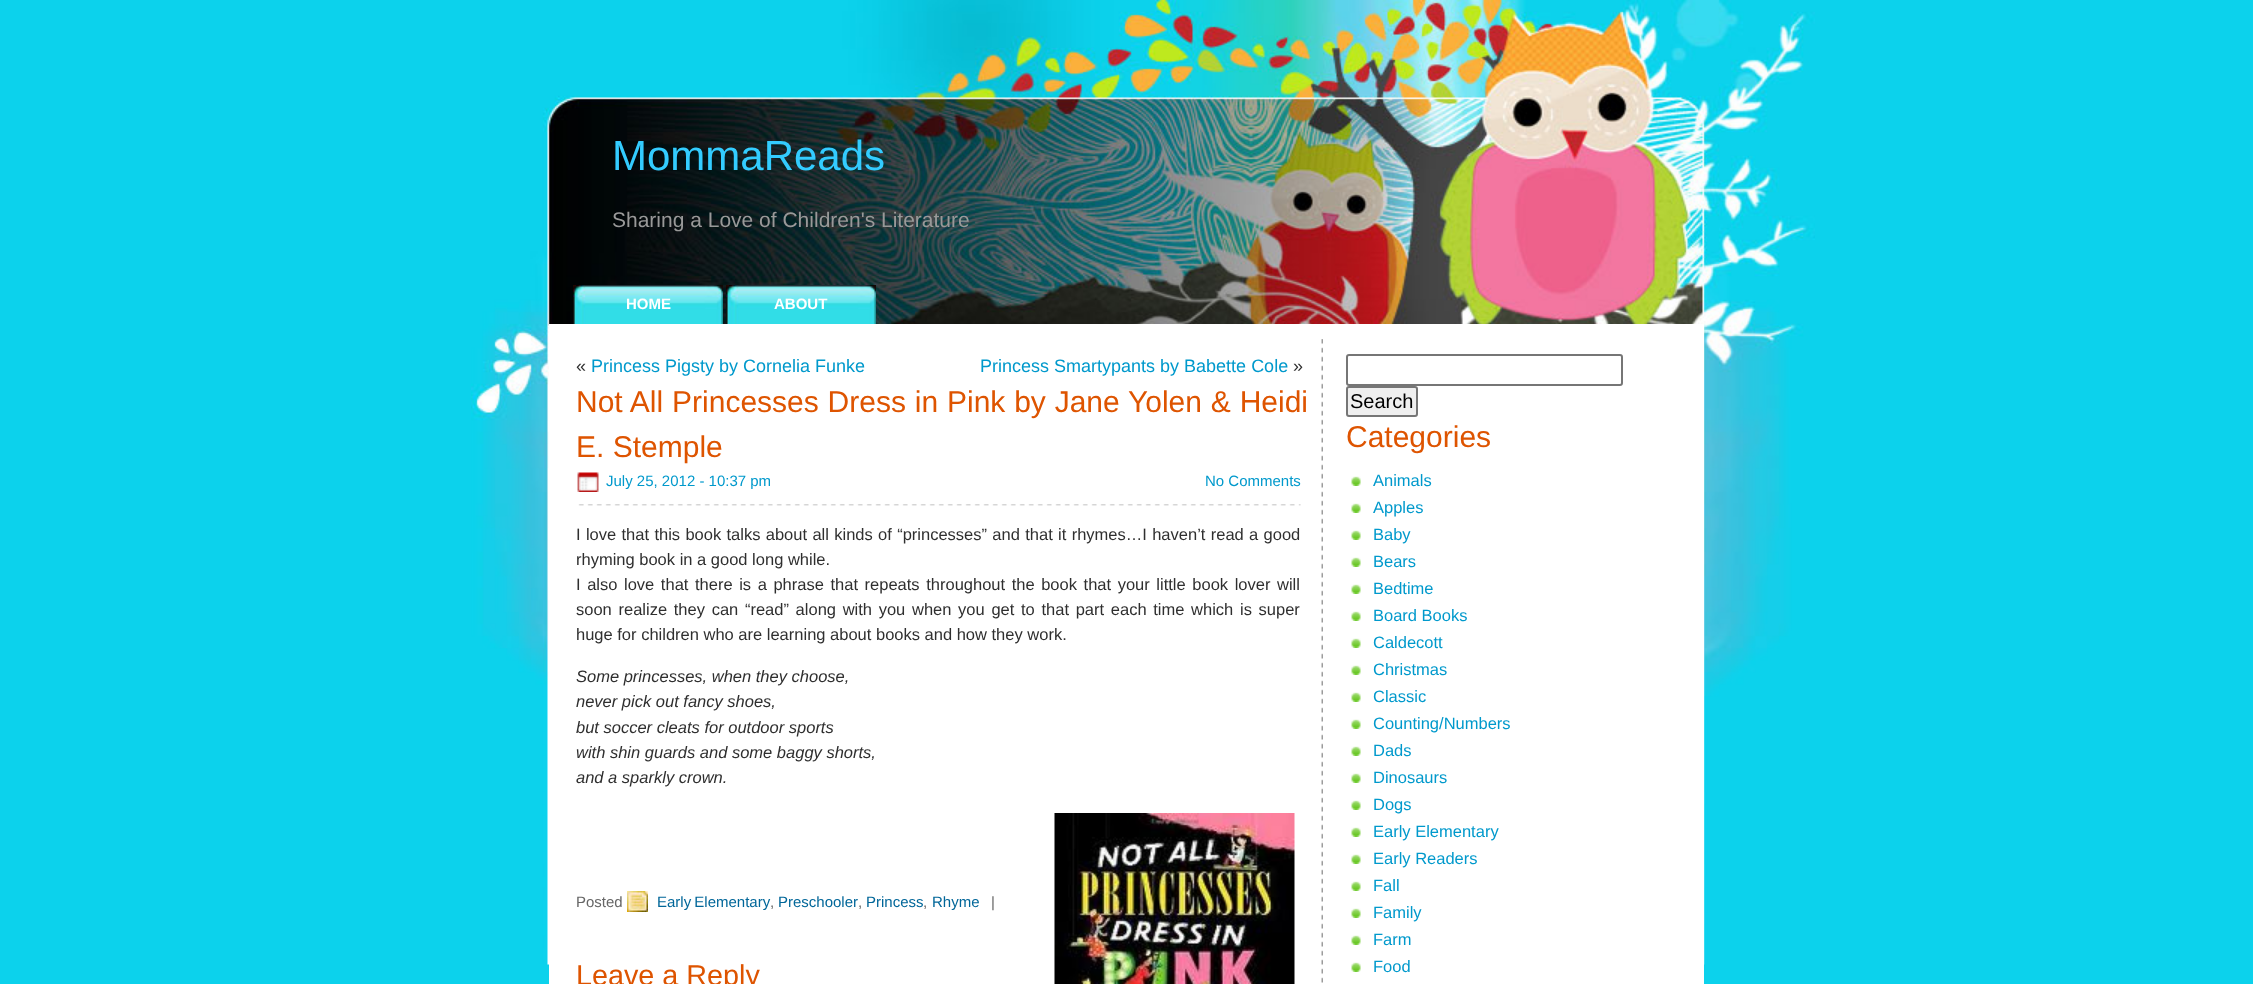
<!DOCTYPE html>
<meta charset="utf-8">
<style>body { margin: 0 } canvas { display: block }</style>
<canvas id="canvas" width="2253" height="984"></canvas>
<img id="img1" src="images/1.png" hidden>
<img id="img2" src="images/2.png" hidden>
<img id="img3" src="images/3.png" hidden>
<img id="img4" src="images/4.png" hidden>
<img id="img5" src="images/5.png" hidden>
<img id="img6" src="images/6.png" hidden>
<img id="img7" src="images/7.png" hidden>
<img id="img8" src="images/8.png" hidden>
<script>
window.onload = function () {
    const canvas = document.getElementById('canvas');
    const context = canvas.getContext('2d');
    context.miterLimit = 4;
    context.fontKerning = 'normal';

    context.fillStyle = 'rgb(12, 210, 236)';
    context.fillRect(0, 0, 2253, 984);
    context.drawImage(document.getElementById('img1'), 471, 0, 1344, 965);
    context.drawImage(document.getElementById('img2'), 573, 285, 150, 39);
    context.drawImage(document.getElementById('img2'), 726, 285, 150, 39);
    context.fillStyle = 'rgb(255, 255, 255)';
    context.fillRect(549, 324, 1155, 660);
    context.drawImage(document.getElementById('img3'), 1321, 339, 2, 644);
    context.drawImage(document.getElementById('img4'), 577, 472, 22, 20);
    context.drawImage(document.getElementById('img5'), 578, 504, 723, 2);
    context.drawImage(document.getElementById('img6'), 627, 891, 21, 21);
    context.drawImage(document.getElementById('img7'), 1054, 813, 241, 171);
    context.beginPath();
    context.roundRect(1347, 355, 275, 30, 2);
    context.strokeStyle = 'rgb(118, 118, 118)';
    context.lineWidth = 2;
    context.stroke();
    context.fillStyle = 'rgb(239, 239, 239)';
    context.beginPath();
    context.roundRect(1347, 387, 70, 29, 2);
    context.fill();
    context.stroke();
    context.drawImage(document.getElementById('img8'), 1351, 476, 10, 10);
    context.drawImage(document.getElementById('img8'), 1351, 503, 10, 10);
    context.drawImage(document.getElementById('img8'), 1351, 530, 10, 10);
    context.drawImage(document.getElementById('img8'), 1351, 557, 10, 10);
    context.drawImage(document.getElementById('img8'), 1351, 584, 10, 10);
    context.drawImage(document.getElementById('img8'), 1351, 611, 10, 10);
    context.drawImage(document.getElementById('img8'), 1351, 638, 10, 10);
    context.drawImage(document.getElementById('img8'), 1351, 665, 10, 10);
    context.drawImage(document.getElementById('img8'), 1351, 692, 10, 10);
    context.drawImage(document.getElementById('img8'), 1351, 719, 10, 10);
    context.drawImage(document.getElementById('img8'), 1351, 746, 10, 10);
    context.drawImage(document.getElementById('img8'), 1351, 773, 10, 10);
    context.drawImage(document.getElementById('img8'), 1351, 800, 10, 10);
    context.drawImage(document.getElementById('img8'), 1351, 827, 10, 10);
    context.drawImage(document.getElementById('img8'), 1351, 854, 10, 10);
    context.drawImage(document.getElementById('img8'), 1351, 881, 10, 10);
    context.drawImage(document.getElementById('img8'), 1351, 908, 10, 10);
    context.drawImage(document.getElementById('img8'), 1351, 935, 10, 10);
    context.drawImage(document.getElementById('img8'), 1351, 962, 10, 10);
    context.font = '42px Liberation Sans';
    context.fillStyle = 'rgb(51, 204, 255)';
    context.fillText('MommaReads', 612, 170);
    context.font = '21px Liberation Sans';
    context.fillStyle = 'rgb(153, 153, 153)';
    context.fillText('Sharing a Love of Children\'s Literature', 612, 227);
    context.font = 'bold 15px Liberation Sans';
    context.fillStyle = 'rgb(255, 255, 255)';
    context.fillText('HOME', 626, 309);
    context.fillText('ABOUT', 774, 309);
    context.font = '18px Liberation Sans';
    context.fillStyle = 'rgb(47, 47, 47)';
    context.fillText('«', 576, 372);
    context.fillStyle = 'rgb(0, 153, 204)';
    context.fillText('Princess Pigsty by Cornelia Funke', 591, 372);
    context.fillText('Princess Smartypants by Babette Cole', 980, 372);
    context.fillStyle = 'rgb(47, 47, 47)';
    context.fillText('»', 1293, 372);
    context.wordSpacing = '0.5px';
    context.font = '30px Liberation Sans';
    context.fillStyle = 'rgb(222, 84, 0)';
    context.fillText('Not All Princesses Dress in Pink by Jane Yolen & Heidi', 576, 412);
    context.wordSpacing = '0px';
    context.fillText('E. Stemple', 576, 457);
    context.font = '15px Liberation Sans';
    context.fillStyle = 'rgb(0, 153, 204)';
    context.fillText('July 25, 2012 - 10:37 pm', 606, 486);
    context.fillText('No Comments', 1205, 486);
    context.wordSpacing = '0.75px';
    context.font = '16.5px Liberation Sans';
    context.fillStyle = 'rgb(47, 47, 47)';
    context.fillText('I love that this book talks about all kinds of “princesses” and that it rhymes…I haven’t read a good', 576, 540);
    context.wordSpacing = '0px';
    context.fillText('rhyming book in a good long while.', 576, 565);
    context.wordSpacing = '2px';
    context.fillText('I also love that there is a phrase that repeats throughout the book that your little book lover will', 576, 590);
    context.wordSpacing = '2.1px';
    context.fillText('soon realize they can “read” along with you when you get to that part each time which is super', 576, 615);
    context.wordSpacing = '0px';
    context.fillText('huge for children who are learning about books and how they work.', 576, 640);
    context.font = 'italic 16.5px Liberation Sans';
    context.fillText('Some princesses, when they choose,', 576, 682);
    context.fillText('never pick out fancy shoes,', 576, 707);
    context.fillText('but soccer cleats for outdoor sports', 576, 733);
    context.fillText('with shin guards and some baggy shorts,', 576, 758);
    context.fillText('and a sparkly crown.', 576, 783);
    context.font = '15px Liberation Sans';
    context.fillStyle = 'rgb(102, 102, 102)';
    context.fillText('Posted', 576, 907);
    context.wordSpacing = '-1px';
    context.fillStyle = 'rgb(0, 102, 153)';
    context.fillText('Early Elementary', 657, 907);
    context.wordSpacing = '0px';
    context.fillStyle = 'rgb(102, 102, 102)';
    context.fillText(',', 770, 907);
    context.fillStyle = 'rgb(0, 102, 153)';
    context.fillText('Preschooler', 778, 907);
    context.fillStyle = 'rgb(102, 102, 102)';
    context.fillText(',', 858, 907);
    context.fillStyle = 'rgb(0, 102, 153)';
    context.fillText('Princess', 866, 907);
    context.fillStyle = 'rgb(102, 102, 102)';
    context.fillText(',', 923, 907);
    context.fillStyle = 'rgb(0, 102, 153)';
    context.fillText('Rhyme', 932, 907);
    context.fillStyle = 'rgb(102, 102, 102)';
    context.fillText('|', 991, 907);
    context.font = '28.75px Liberation Sans';
    context.fillStyle = 'rgb(222, 84, 0)';
    context.fillText('Leave a Reply', 576, 985);
    context.font = '20px Liberation Sans';
    context.fillStyle = 'rgb(0, 0, 0)';
    context.fillText('Search', 1350, 408);
    context.font = '30px Liberation Sans';
    context.fillStyle = 'rgb(222, 84, 0)';
    context.fillText('Categories', 1346, 447);
    context.font = '16.5px Liberation Sans';
    context.fillStyle = 'rgb(0, 153, 204)';
    context.fillText('Animals', 1373, 486);
    context.fillText('Apples', 1373, 513);
    context.fillText('Baby', 1373, 540);
    context.fillText('Bears', 1373, 567);
    context.fillText('Bedtime', 1373, 594);
    context.fillText('Board Books', 1373, 621);
    context.fillText('Caldecott', 1373, 648);
    context.fillText('Christmas', 1373, 675);
    context.fillText('Classic', 1373, 702);
    context.fillText('Counting/Numbers', 1373, 729);
    context.fillText('Dads', 1373, 756);
    context.fillText('Dinosaurs', 1373, 783);
    context.fillText('Dogs', 1373, 810);
    context.fillText('Early Elementary', 1373, 837);
    context.fillText('Early Readers', 1373, 864);
    context.fillText('Fall', 1373, 891);
    context.fillText('Family', 1373, 918);
    context.fillText('Farm', 1373, 945);
    context.fillText('Food', 1373, 972);
};
</script>
